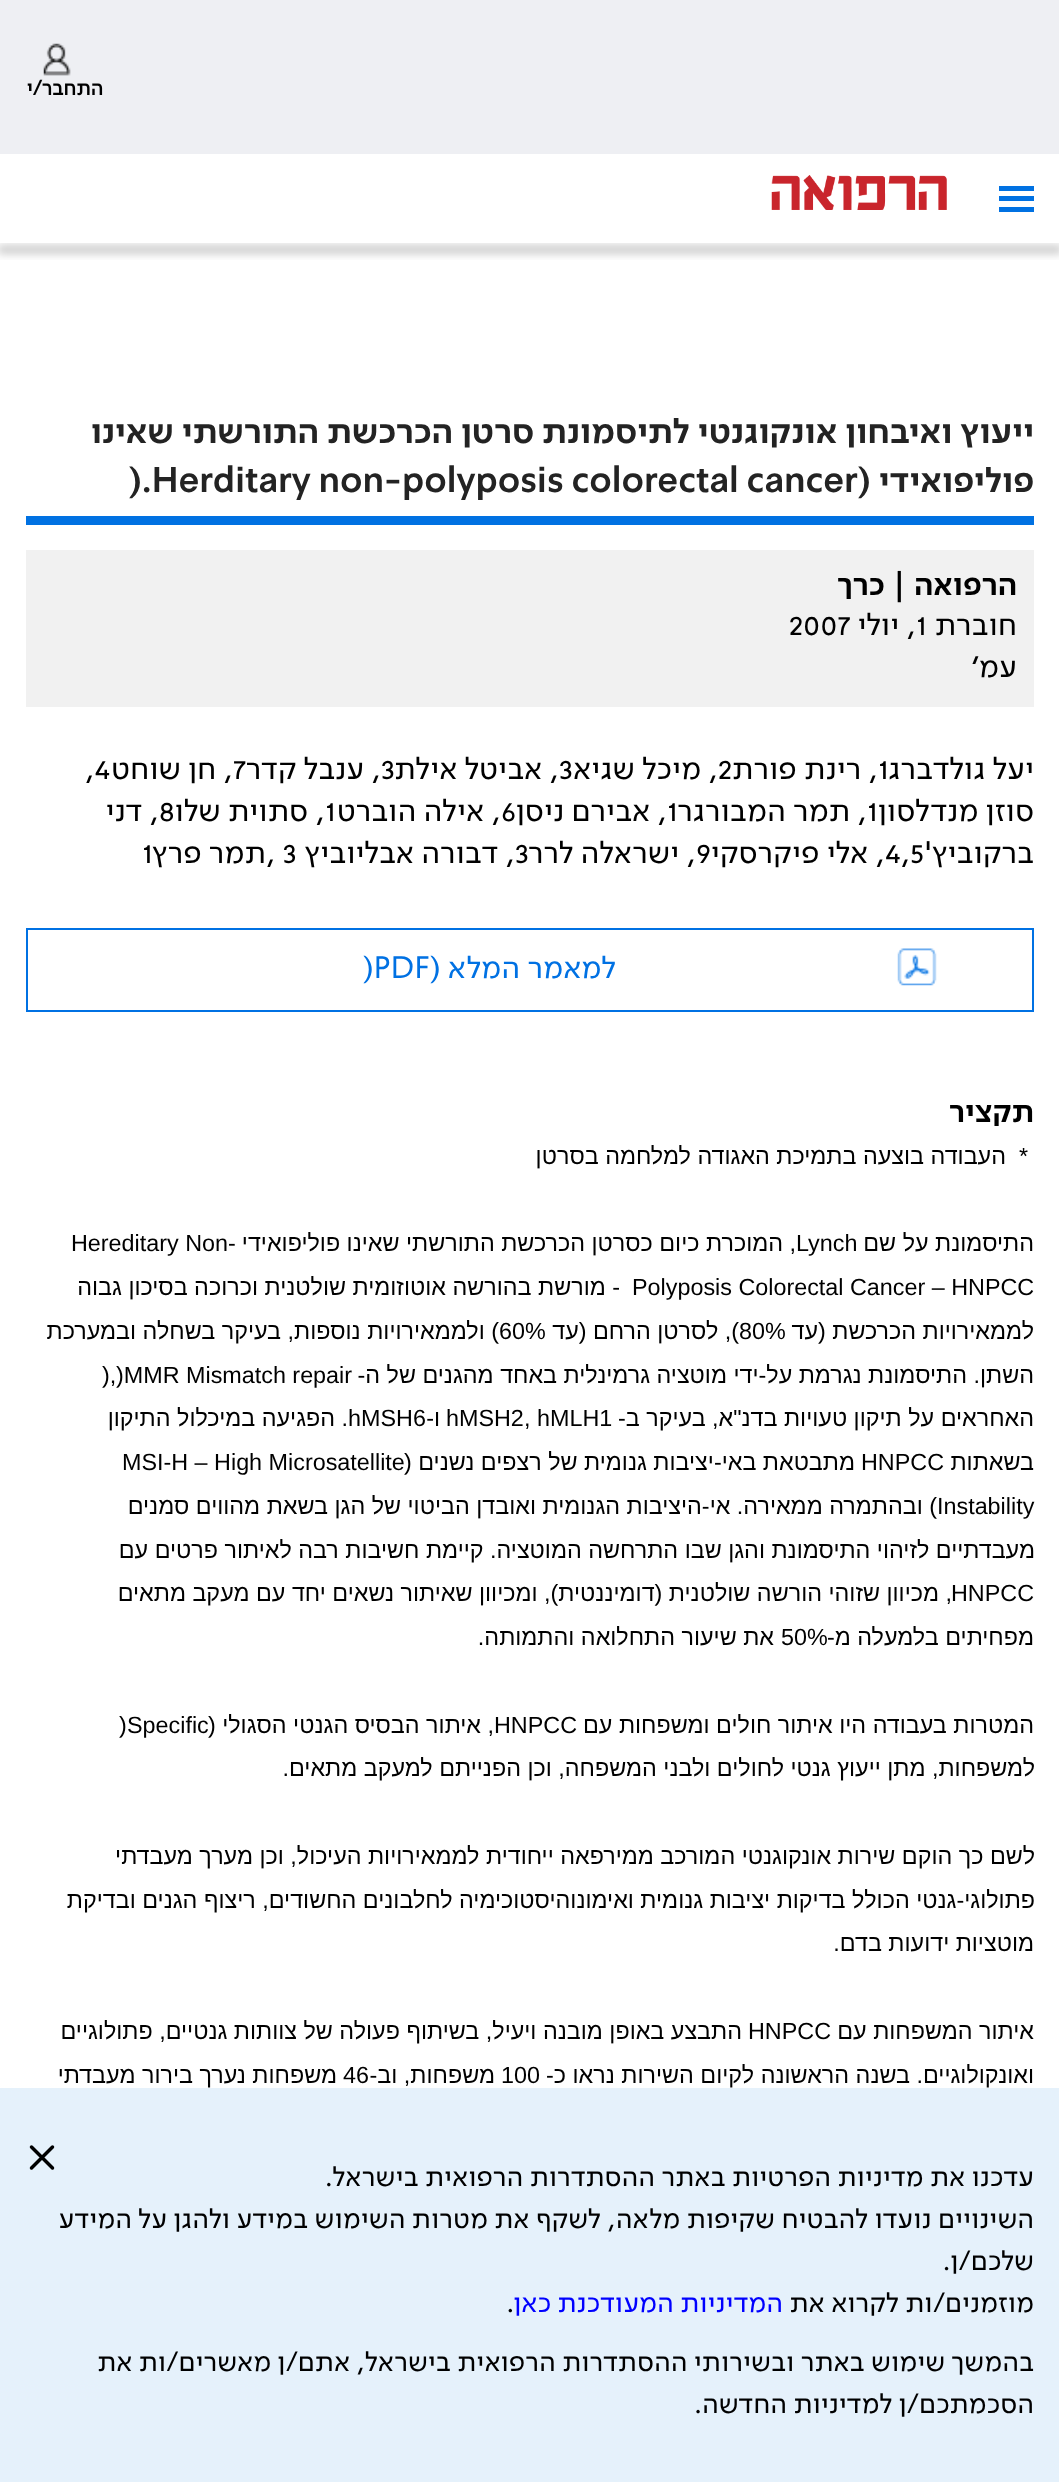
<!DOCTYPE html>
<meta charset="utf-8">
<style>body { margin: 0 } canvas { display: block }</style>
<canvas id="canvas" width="1059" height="2482"></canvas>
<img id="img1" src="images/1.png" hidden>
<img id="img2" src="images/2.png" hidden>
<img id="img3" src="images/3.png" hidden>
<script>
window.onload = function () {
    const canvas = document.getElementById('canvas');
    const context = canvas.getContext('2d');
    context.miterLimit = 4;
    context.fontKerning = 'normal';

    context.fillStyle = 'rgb(255, 255, 255)';
    context.fillRect(0, 0, 1059, 2482);
    context.fillStyle = 'rgb(238, 239, 243)';
    context.fillRect(0, 0, 1059, 154);
    context.drawImage(document.getElementById('img1'), 43, 43, 28, 33);
    context.fillStyle = 'rgb(0, 113, 226)';
    context.fillRect(999, 207, 35, 5);
    context.fillRect(999, 186, 35, 5);
    context.fillRect(999, 196, 35, 5);
    context.drawImage(document.getElementById('img2'), 771, 175, 176, 35);
    context.save();
    context.beginPath();
    context.rect(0, 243, 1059, 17);
    context.clip();
    context.fillStyle = 'rgba(0, 0, 0, 0.2)';
    context.filter = 'blur(4.5px)';
    context.beginPath();
    context.rect(-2, 245, 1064, 9);
    context.fill();
    context.filter = 'none';
    context.restore();
    context.fillRect(26, 516, 1008, 9);
    context.fillStyle = 'rgb(241, 241, 241)';
    context.fillRect(26, 550, 1008, 157);
    context.drawImage(document.getElementById('img3'), 897, 948, 40, 38);
    context.strokeStyle = 'rgb(0, 113, 227)';
    context.lineWidth = 2;
    context.strokeRect(27, 929, 1006, 82);
    context.fillStyle = 'rgb(229, 241, 251)';
    context.fillRect(0, 2088, 1059, 394);
    context.beginPath();
    context.moveTo(52.5, 2147);
    context.lineTo(31.5, 2168);
    context.moveTo(31.5, 2147);
    context.lineTo(52.5, 2168);
    context.strokeStyle = 'rgb(0, 0, 0)';
    context.lineWidth = 3.5;
    context.lineCap = 'round';
    context.lineJoin = 'round';
    context.stroke();
    context.direction = 'rtl';
    context.font = 'bold 21px "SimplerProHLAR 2"';
    context.fillStyle = 'rgb(0, 0, 0)';
    context.fillText('התחבר/י', 103, 95);
    context.font = 'bold 35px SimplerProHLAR';
    context.fillStyle = 'rgb(35, 35, 35)';
    context.fillText('ייעוץ ואיבחון אונקוגנטי לתיסמונת סרטן הכרכשת התורשתי שאינו', 1034, 443);
    context.fillText('פוליפואידי (', 1034, 492);
    context.direction = 'ltr';
    context.fillText(').Herditary non-polyposis colorectal cancer', 129, 492);
    context.direction = 'rtl';
    context.font = 'bold 31.5px SimplerProHLAR';
    context.fillStyle = 'rgb(0, 0, 0)';
    context.fillText('הרפואה | כרך', 1017, 595);
    context.font = '31.5px SimplerProHLAR';
    context.fillText('חוברת', 1017, 635);
    context.direction = 'ltr';
    context.fillText('1', 916, 635);
    context.direction = 'rtl';
    context.fillText(', יולי', 916, 635);
    context.direction = 'ltr';
    context.fillText('2007', 789, 635);
    context.direction = 'rtl';
    context.fillText('עמ׳', 1017, 677);
    context.fillText('יעל גולדברג', 1034, 779);
    context.direction = 'ltr';
    context.fillText('1', 878, 779);
    context.direction = 'rtl';
    context.fillText(', רינת פורת', 878, 779);
    context.direction = 'ltr';
    context.fillText('2', 718, 779);
    context.direction = 'rtl';
    context.fillText(', מיכל שגיא', 718, 779);
    context.direction = 'ltr';
    context.fillText('3', 559, 779);
    context.direction = 'rtl';
    context.fillText(', אביטל אילת', 559, 779);
    context.direction = 'ltr';
    context.fillText('3', 381, 779);
    context.direction = 'rtl';
    context.fillText(', ענבל קדר', 381, 779);
    context.direction = 'ltr';
    context.fillText('7', 233, 779);
    context.direction = 'rtl';
    context.fillText(', חן שוחט', 233, 779);
    context.direction = 'ltr';
    context.fillText(',4', 85, 779);
    context.direction = 'rtl';
    context.fillText('סוזן מנדלסון', 1034, 821);
    context.direction = 'ltr';
    context.fillText('1', 867, 821);
    context.direction = 'rtl';
    context.fillText(', תמר המבורגר', 867, 821);
    context.direction = 'ltr';
    context.fillText('1', 667, 821);
    context.direction = 'rtl';
    context.fillText(', אבירם ניסן', 667, 821);
    context.direction = 'ltr';
    context.fillText('6', 501, 821);
    context.direction = 'rtl';
    context.fillText(', אילה הוברט', 501, 821);
    context.direction = 'ltr';
    context.fillText('1', 325, 821);
    context.direction = 'rtl';
    context.fillText(', סתוית שלו', 325, 821);
    context.direction = 'ltr';
    context.fillText('8', 159, 821);
    context.direction = 'rtl';
    context.fillText(', דני', 159, 821);
    context.fillText('ברקוביץ\'', 1034, 863);
    context.direction = 'ltr';
    context.fillText('4,5', 885, 863);
    context.direction = 'rtl';
    context.fillText(', אלי פיקרסקי', 885, 863);
    context.direction = 'ltr';
    context.fillText('9', 696, 863);
    context.direction = 'rtl';
    context.fillText(', ישראלה לרר', 696, 863);
    context.direction = 'ltr';
    context.fillText('3', 515, 863);
    context.direction = 'rtl';
    context.fillText(', דבורה אבליוביץ', 515, 863);
    context.direction = 'ltr';
    context.fillText(', 3', 266, 863);
    context.direction = 'rtl';
    context.fillText('תמר פרץ', 266, 863);
    context.direction = 'ltr';
    context.fillText('1', 142, 863);
    context.direction = 'rtl';
    context.fillStyle = 'rgb(0, 113, 227)';
    context.fillText('למאמר המלא (', 616, 978);
    context.direction = 'ltr';
    context.fillText(')PDF', 363, 978);
    context.direction = 'rtl';
    context.font = 'bold 31.5px SimplerProHLAR';
    context.fillStyle = 'rgb(0, 0, 0)';
    context.fillText('תקציר', 1034, 1122);
    context.direction = 'ltr';
    context.font = '23.35px Liberation Sans';
    context.fillText('*', 1019, 1164);
    context.direction = 'rtl';
    context.fillText('העבודה בוצעה בתמיכת האגודה למלחמה בסרטן', 1006, 1164);
    context.fillText('התיסמונת על שם', 1034, 1251);
    context.direction = 'ltr';
    context.fillText('Lynch', 796, 1251);
    context.direction = 'rtl';
    context.fillText(', המוכרת כיום כסרטן הכרכשת התורשתי שאינו פוליפואידי', 796, 1251);
    context.direction = 'ltr';
    context.fillText('Hereditary Non-', 71, 1251);
    context.fillText('Polyposis Colorectal Cancer – HNPCC', 632, 1295);
    context.direction = 'rtl';
    context.fillText('- מורשת בהורשה אוטוזומית שולטנית וכרוכה בסיכון גבוה', 620, 1295);
    context.fillText('לממאירויות הכרכשת (עד', 1034, 1339);
    context.direction = 'ltr';
    context.fillText('80%', 739, 1339);
    context.direction = 'rtl';
    context.fillText('), לסרטן הרחם (עד', 739, 1339);
    context.direction = 'ltr';
    context.fillText('60%', 499, 1339);
    context.direction = 'rtl';
    context.fillText(') ולממאירויות נוספות, בעיקר בשחלה ובמערכת', 499, 1339);
    context.fillText('השתן. התיסמונת נגרמת על-ידי מוטציה גרמינלית באחד מהגנים של ה-', 1034, 1383);
    context.direction = 'ltr';
    context.fillText('Mismatch repair', 186, 1383);
    context.fillText(')MMR', 116, 1383);
    context.fillText('),', 102, 1383);
    context.direction = 'rtl';
    context.fillText('האחראים על תיקון טעויות בדנ"א, בעיקר ב-', 1034, 1426);
    context.direction = 'ltr';
    context.fillText('hMLH1', 537, 1426);
    context.fillText(',', 524, 1426);
    context.fillText('hMSH2', 446, 1426);
    context.direction = 'rtl';
    context.fillText('ו-', 440, 1426);
    context.direction = 'ltr';
    context.fillText('6', 413, 1426);
    context.fillText('hMSH', 348, 1426);
    context.direction = 'rtl';
    context.fillText('. הפגיעה במיכלול התיקון', 348, 1426);
    context.fillText('בשאתות', 1034, 1470);
    context.direction = 'ltr';
    context.fillText('HNPCC', 861, 1470);
    context.direction = 'rtl';
    context.fillText('מתבטאת באי-יציבות גנומית של רצפים נשנים (', 855, 1470);
    context.direction = 'ltr';
    context.fillText('MSI-H – High Microsatellite', 122, 1470);
    context.fillText('Instability', 937, 1514);
    context.direction = 'rtl';
    context.fillText(') ובהתמרה ממאירה. אי-היציבות הגנומית ואובדן הביטוי של הגן בשאת מהווים סמנים', 937, 1514);
    context.fillText('מעבדתיים לזיהוי התיסמונת והגן שבו התרחשה המוטציה. קיימת חשיבות רבה לאיתור פרטים עם', 1035, 1558);
    context.direction = 'ltr';
    context.fillText('HNPCC', 951, 1601);
    context.direction = 'rtl';
    context.fillText(', מכיוון שזוהי הורשה שולטנית (דומיננטית), ומכיוון שאיתור נשאים יחד עם מעקב מתאים', 952, 1601);
    context.fillText('מפחיתים בלמעלה מ-', 1034, 1645);
    context.direction = 'ltr';
    context.fillText('50%', 781, 1645);
    context.direction = 'rtl';
    context.fillText('את שיעור התחלואה והתמותה.', 774, 1645);
    context.fillText('המטרות בעבודה היו איתור חולים ומשפחות עם', 1034, 1733);
    context.direction = 'ltr';
    context.fillText('HNPCC', 494, 1733);
    context.direction = 'rtl';
    context.fillText(', איתור הבסיס הגנטי הסגולי (', 494, 1733);
    context.direction = 'ltr';
    context.fillText('Specific', 127, 1733);
    context.fillText(')', 119, 1733);
    context.direction = 'rtl';
    context.fillText('למשפחות, מתן ייעוץ גנטי לחולים ולבני המשפחה, וכן הפנייתם למעקב מתאים.', 1035, 1776);
    context.fillText('לשם כך הוקם שירות אונקוגנטי המורכב ממירפאה ייחודית לממאירויות העיכול, וכן מערך מעבדתי', 1035, 1864);
    context.fillText('פתולוגי-גנטי הכולל בדיקות יציבות גנומית ואימונוהיסטוכימיה לחלבונים החשודים, ריצוף הגנים ובדיקת', 1035, 1908);
    context.fillText('מוטציות ידועות בדם.', 1034, 1951);
    context.fillText('איתור המשפחות עם', 1034, 2039);
    context.direction = 'ltr';
    context.fillText('HNPCC', 748, 2039);
    context.direction = 'rtl';
    context.fillText('התבצע באופן מובנה ויעיל, בשיתוף פעולה של צוותות גנטיים, פתולוגיים', 742, 2039);
    context.fillText('ואונקולוגיים. בשנה הראשונה לקיום השירות נראו כ-', 1034, 2083);
    context.direction = 'ltr';
    context.fillText('100', 501, 2083);
    context.direction = 'rtl';
    context.fillText('משפחות, וב-', 495, 2083);
    context.direction = 'ltr';
    context.fillText('46', 343, 2083);
    context.direction = 'rtl';
    context.fillText('משפחות נערך בירור מעבדתי', 337, 2083);
    context.font = '28px SimplerProHLAR';
    context.fillText('עדכנו את מדיניות הפרטיות באתר ההסתדרות הרפואית בישראל.', 1034, 2186);
    context.fillText('השינויים נועדו להבטיח שקיפות מלאה, לשקף את מטרות השימוש במידע ולהגן על המידע', 1034, 2228);
    context.fillText('שלכם/ן.', 1034, 2270);
    context.fillText('מוזמנים/ות לקרוא את', 1034, 2312);
    context.fillStyle = 'rgb(0, 0, 255)';
    context.fillText('המדיניות המעודכנת כאן', 783, 2312);
    context.direction = 'ltr';
    context.fillStyle = 'rgb(0, 0, 0)';
    context.fillText('.', 507, 2312);
    context.direction = 'rtl';
    context.fillText('בהמשך שימוש באתר ובשירותי ההסתדרות הרפואית בישראל, אתם/ן מאשרים/ות את', 1034, 2371);
    context.fillText('הסכמתכם/ן למדיניות החדשה.', 1034, 2413);
};
</script>
